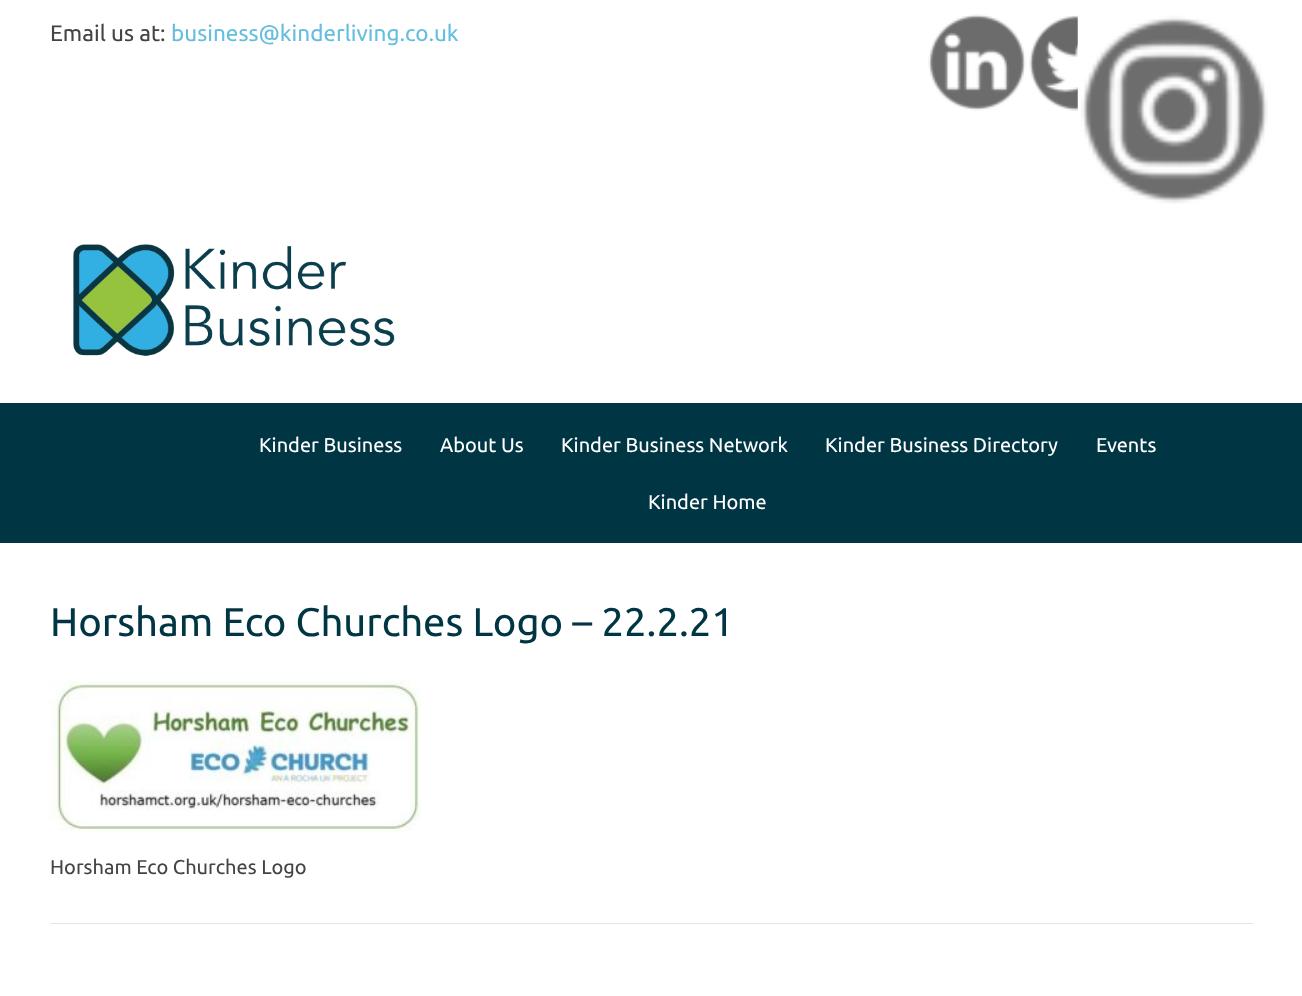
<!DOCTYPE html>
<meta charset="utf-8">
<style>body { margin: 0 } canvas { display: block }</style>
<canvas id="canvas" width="1302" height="996"></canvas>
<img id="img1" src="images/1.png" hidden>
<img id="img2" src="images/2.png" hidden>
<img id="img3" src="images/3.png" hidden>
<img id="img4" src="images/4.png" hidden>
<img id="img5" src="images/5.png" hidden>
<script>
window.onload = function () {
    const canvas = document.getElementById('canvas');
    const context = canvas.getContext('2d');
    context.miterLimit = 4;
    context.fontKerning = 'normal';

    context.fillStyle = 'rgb(255, 255, 255)';
    context.fillRect(0, 0, 1302, 996);
    context.drawImage(document.getElementById('img1'), 928, 14, 98, 97);
    context.drawImage(document.getElementById('img2'), 1029, 15, 49, 96);
    context.drawImage(document.getElementById('img3'), 1077, 15, 191, 189);
    context.drawImage(document.getElementById('img4'), 73, 244, 322, 112);
    context.fillStyle = 'rgb(0, 54, 67)';
    context.fillRect(0, 403, 1302, 140);
    context.drawImage(document.getElementById('img5'), 50, 680, 371, 153);
    context.fillStyle = 'rgb(230, 230, 230)';
    context.fillRect(50, 923, 1203, 1);
    context.font = '22.5px Ubuntu';
    context.fillStyle = 'rgb(68, 68, 68)';
    context.fillText('Email us at:', 50, 41);
    context.fillStyle = 'rgb(101, 190, 221)';
    context.fillText('business@kinderliving.co.uk', 171, 41);
    context.font = '20px Ubuntu';
    context.fillStyle = 'rgb(255, 255, 255)';
    context.fillText('Kinder Business', 259, 452);
    context.fillText('About Us', 440, 452);
    context.fillText('Kinder Business Network', 561, 452);
    context.fillText('Kinder Business Directory', 825, 452);
    context.fillText('Events', 1096, 452);
    context.fillText('Kinder Home', 648, 509);
    context.font = '40px Ubuntu';
    context.fillStyle = 'rgb(0, 54, 67)';
    context.fillText('Horsham Eco Churches Logo – 22.2.21', 50, 636);
    context.font = '20px Ubuntu';
    context.fillStyle = 'rgb(68, 68, 68)';
    context.fillText('Horsham Eco Churches Logo', 50, 874);
};
</script>
